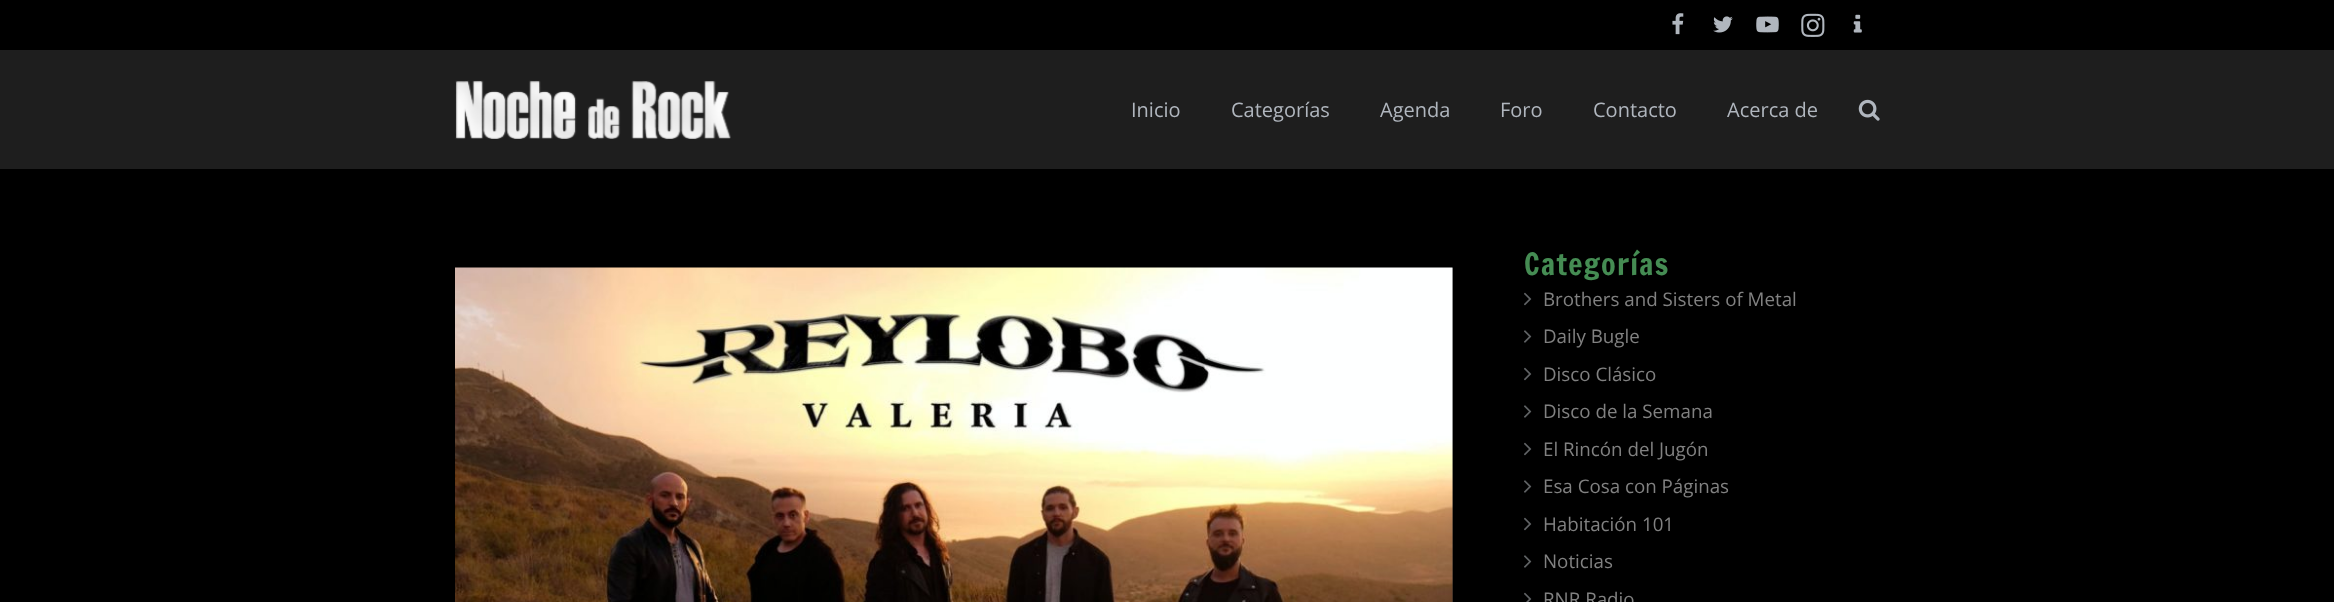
<!DOCTYPE html>
<meta charset="utf-8">
<style>body { margin: 0 } canvas { display: block }</style>
<canvas id="canvas" width="2334" height="602"></canvas>
<img id="img1" src="images/1.png" hidden>
<img id="img2" src="images/2.png" hidden>
<img id="img3" src="images/3.png" hidden>
<img id="img4" src="images/4.png" hidden>
<img id="img5" src="images/5.png" hidden>
<img id="img6" src="images/6.png" hidden>
<img id="img7" src="images/7.png" hidden>
<img id="img8" src="images/8.png" hidden>
<img id="img9" src="images/9.png" hidden>
<img id="img10" src="images/10.png" hidden>
<img id="img11" src="images/11.png" hidden>
<script>
window.onload = function () {
    const canvas = document.getElementById('canvas');
    const context = canvas.getContext('2d');
    context.miterLimit = 4;
    context.fontKerning = 'normal';

    context.fillStyle = 'rgb(0, 0, 0)';
    context.fillRect(0, 0, 2334, 602);
    context.drawImage(document.getElementById('img1'), 1672, 13, 12, 22);
    context.drawImage(document.getElementById('img2'), 1713, 16, 20, 17);
    context.drawImage(document.getElementById('img3'), 1756, 16, 23, 17);
    context.drawImage(document.getElementById('img4'), 1801, 13, 24, 24);
    context.drawImage(document.getElementById('img5'), 1853, 14, 9, 19);
    context.fillStyle = 'rgb(30, 30, 30)';
    context.fillRect(0, 50, 2334, 119);
    context.drawImage(document.getElementById('img6'), 455, 80, 276, 60);
    context.drawImage(document.getElementById('img7'), 1858, 99, 22, 22);
    context.fillStyle = 'rgb(36, 36, 36)';
    context.fillRect(1452, 268, 1, 334);
    context.drawImage(document.getElementById('img8'), 455, 267, 998, 335);
    context.drawImage(document.getElementById('img9'), 1524, 292, 8, 14);
    context.drawImage(document.getElementById('img10'), 1524, 330, 8, 13);
    context.drawImage(document.getElementById('img9'), 1524, 367, 8, 14);
    context.drawImage(document.getElementById('img10'), 1524, 405, 8, 13);
    context.drawImage(document.getElementById('img9'), 1524, 442, 8, 14);
    context.drawImage(document.getElementById('img10'), 1524, 480, 8, 13);
    context.drawImage(document.getElementById('img9'), 1524, 517, 8, 14);
    context.drawImage(document.getElementById('img10'), 1524, 555, 8, 13);
    context.drawImage(document.getElementById('img11'), 1524, 592, 8, 10);
    context.font = '20px Open Sans';
    context.fillStyle = 'rgb(176, 182, 190)';
    context.fillText('Inicio', 1131, 117);
    context.fillText('Categorías', 1231, 117);
    context.fillText('Agenda', 1380, 117);
    context.fillText('Foro', 1500, 117);
    context.fillText('Contacto', 1593, 117);
    context.fillText('Acerca de', 1727, 117);
    context.letterSpacing = '1.25px';
    context.font = '30px Francois One';
    context.fillStyle = 'rgb(69, 140, 83)';
    context.fillText('Categorías', 1524, 275);
    context.letterSpacing = '0px';
    context.font = '18.75px Open Sans';
    context.fillStyle = 'rgb(129, 129, 129)';
    context.fillText('Brothers and Sisters of Metal', 1543, 306);
    context.fillText('Daily Bugle', 1543, 343);
    context.fillText('Disco Clásico', 1543, 381);
    context.fillText('Disco de la Semana', 1543, 418);
    context.fillText('El Rincón del Jugón', 1543, 456);
    context.fillText('Esa Cosa con Páginas', 1543, 493);
    context.fillText('Habitación 101', 1543, 531);
    context.fillText('Noticias', 1543, 568);
    context.fillText('RNR Radio', 1543, 606);
};
</script>
